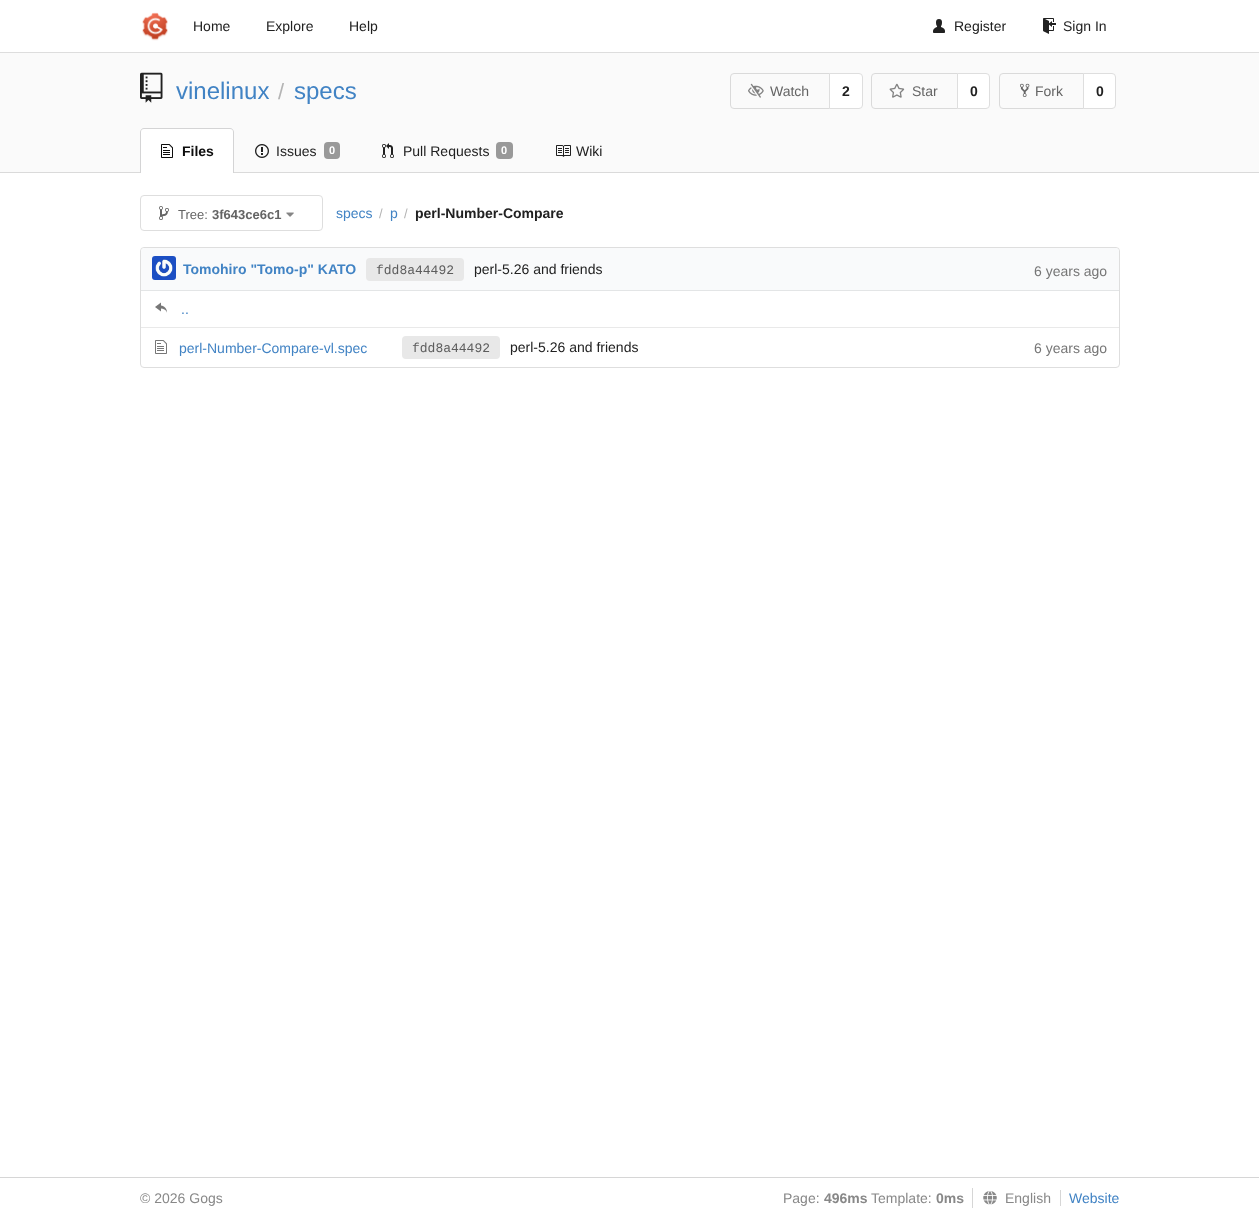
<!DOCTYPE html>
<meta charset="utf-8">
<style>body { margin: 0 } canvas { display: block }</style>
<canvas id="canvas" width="1259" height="1217"></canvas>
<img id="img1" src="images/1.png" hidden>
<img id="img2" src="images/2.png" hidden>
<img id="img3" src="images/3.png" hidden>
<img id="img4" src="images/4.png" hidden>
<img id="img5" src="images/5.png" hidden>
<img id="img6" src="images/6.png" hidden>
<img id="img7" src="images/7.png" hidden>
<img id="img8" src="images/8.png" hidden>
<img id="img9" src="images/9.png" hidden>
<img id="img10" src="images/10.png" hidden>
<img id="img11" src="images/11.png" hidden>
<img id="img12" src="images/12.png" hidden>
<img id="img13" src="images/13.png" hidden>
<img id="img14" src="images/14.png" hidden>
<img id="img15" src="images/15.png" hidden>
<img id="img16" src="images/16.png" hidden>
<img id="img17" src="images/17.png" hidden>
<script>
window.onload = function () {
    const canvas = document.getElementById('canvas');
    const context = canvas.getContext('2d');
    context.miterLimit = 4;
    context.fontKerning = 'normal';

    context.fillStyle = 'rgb(255, 255, 255)';
    context.fillRect(0, 0, 1259, 1217);
    context.fillStyle = 'rgb(221, 221, 221)';
    context.fillRect(0, 52, 1259, 1);
    context.drawImage(document.getElementById('img1'), 142, 12, 26, 29);
    context.drawImage(document.getElementById('img2'), 933, 19, 12, 14);
    context.drawImage(document.getElementById('img3'), 1043, 18, 13, 16);
    context.fillStyle = 'rgb(250, 250, 250)';
    context.fillRect(0, 53, 1259, 119);
    context.drawImage(document.getElementById('img4'), 140, 72, 23, 31);
    context.beginPath();
    context.roundRect(730.5, 73.5, 99, 35, [3.5, 0, 0, 3.5]);
    context.strokeStyle = 'rgb(218, 218, 218)';
    context.stroke();
    context.drawImage(document.getElementById('img5'), 748, 83, 16, 15);
    context.fillStyle = 'rgb(255, 255, 255)';
    context.beginPath();
    context.roundRect(829.5, 73.5, 33, 35, [0, 3.5, 3.5, 0]);
    context.fill();
    context.strokeStyle = 'rgb(222, 222, 222)';
    context.stroke();
    context.beginPath();
    context.roundRect(871.5, 73.5, 86, 35, [3.5, 0, 0, 3.5]);
    context.strokeStyle = 'rgb(218, 218, 218)';
    context.stroke();
    context.drawImage(document.getElementById('img6'), 889, 83, 16, 15);
    context.beginPath();
    context.roundRect(957.5, 73.5, 32, 35, [0, 3.5, 3.5, 0]);
    context.fill();
    context.strokeStyle = 'rgb(222, 222, 222)';
    context.stroke();
    context.beginPath();
    context.roundRect(999.5, 73.5, 84, 35, [3.5, 0, 0, 3.5]);
    context.strokeStyle = 'rgb(218, 218, 218)';
    context.stroke();
    context.drawImage(document.getElementById('img7'), 1020, 83, 10, 14);
    context.beginPath();
    context.roundRect(1083.5, 73.5, 32, 35, [0, 3.5, 3.5, 0]);
    context.fill();
    context.strokeStyle = 'rgb(222, 222, 222)';
    context.stroke();
    context.fillStyle = 'rgb(218, 218, 218)';
    context.fillRect(0, 172, 1259, 1);
    context.fillStyle = 'rgb(255, 255, 255)';
    context.beginPath();
    context.roundRect(140, 128, 94, 45, [4, 4, 0, 0]);
    context.fill();
    context.fillStyle = 'rgb(212, 212, 213)';
    context.beginPath();
    context.moveTo(144, 128);
    context.lineTo(230, 128);
    context.bezierCurveTo(232, 128, 234, 130, 234, 132);
    context.lineTo(234, 173);
    context.lineTo(140, 173);
    context.lineTo(140, 132);
    context.bezierCurveTo(140, 130, 142, 128, 144, 128);
    context.closePath();
    context.moveTo(144, 129);
    context.lineTo(230, 129);
    context.bezierCurveTo(232, 129, 233, 130, 233, 132);
    context.lineTo(233, 173);
    context.lineTo(141, 173);
    context.lineTo(141, 132);
    context.bezierCurveTo(141, 130, 142, 129, 144, 129);
    context.closePath();
    context.fill('evenodd');
    context.drawImage(document.getElementById('img8'), 161, 144, 12, 14);
    context.drawImage(document.getElementById('img9'), 255, 144, 14, 14);
    context.fillStyle = 'rgb(153, 153, 153)';
    context.beginPath();
    context.roundRect(324, 142, 16, 17, 4);
    context.fill();
    context.drawImage(document.getElementById('img10'), 382, 143, 12, 15);
    context.beginPath();
    context.roundRect(496, 142, 17, 17, 4);
    context.fill();
    context.drawImage(document.getElementById('img11'), 556, 145, 15, 12);
    context.beginPath();
    context.roundRect(140.5, 195.5, 182, 35, 3.5);
    context.stroke();
    context.drawImage(document.getElementById('img12'), 159, 206, 10, 14);
    context.drawImage(document.getElementById('img13'), 286, 212, 8, 5);
    context.beginPath();
    context.roundRect(140.5, 247.5, 979, 120, 3.5);
    context.stroke();
    context.fillStyle = 'rgb(249, 250, 251)';
    context.beginPath();
    context.roundRect(141, 248, 794, 43, [4, 0, 0, 0]);
    context.fill();
    context.fillStyle = 'rgb(227, 229, 230)';
    context.fillRect(141, 290, 794, 1);
    context.drawImage(document.getElementById('img14'), 152, 256, 24, 24);
    context.fillStyle = 'rgb(232, 232, 232)';
    context.beginPath();
    context.roundRect(366, 258, 98, 23, 4);
    context.fill();
    context.fillStyle = 'rgb(249, 250, 251)';
    context.beginPath();
    context.roundRect(935, 248, 184, 43, [0, 4, 0, 0]);
    context.fill();
    context.fillStyle = 'rgb(227, 229, 230)';
    context.fillRect(935, 290, 184, 1);
    context.drawImage(document.getElementById('img15'), 155, 302, 12, 11);
    context.fillStyle = 'rgb(233, 233, 233)';
    context.fillRect(141, 327, 978, 1);
    context.drawImage(document.getElementById('img16'), 155, 340, 12, 14);
    context.fillStyle = 'rgb(232, 232, 232)';
    context.beginPath();
    context.roundRect(402, 336, 98, 23, 4);
    context.fill();
    context.fillStyle = 'rgb(214, 214, 214)';
    context.fillRect(0, 1177, 1259, 1);
    context.fillRect(972, 1188, 1, 20);
    context.drawImage(document.getElementById('img17'), 983, 1191, 14, 14);
    context.fillRect(1060, 1190, 1, 16);
    context.font = '14px Liberation Sans';
    context.fillStyle = 'rgb(33, 33, 33)';
    context.fillText('Home', 193, 31);
    context.fillText('Explore', 266, 31);
    context.fillText('Help', 349, 31);
    context.fillText('Register', 954, 31);
    context.fillText('Sign In', 1063, 31);
    context.font = '24px Liberation Sans';
    context.fillStyle = 'rgb(65, 131, 196)';
    context.fillText('vinelinux', 176, 99);
    context.font = '22px Liberation Sans';
    context.fillStyle = 'rgb(180, 180, 180)';
    context.fillText('/', 278, 99);
    context.font = '24px Liberation Sans';
    context.fillStyle = 'rgb(65, 131, 196)';
    context.fillText('specs', 294, 99);
    context.font = '14px Liberation Sans';
    context.fillStyle = 'rgb(100, 100, 100)';
    context.fillText('Watch', 770, 96);
    context.font = 'bold 14px Liberation Sans';
    context.fillStyle = 'rgb(33, 33, 33)';
    context.fillText('2', 842, 96);
    context.font = '14px Liberation Sans';
    context.fillStyle = 'rgb(100, 100, 100)';
    context.fillText('Star', 912, 96);
    context.font = 'bold 14px Liberation Sans';
    context.fillStyle = 'rgb(33, 33, 33)';
    context.fillText('0', 970, 96);
    context.font = '14px Liberation Sans';
    context.fillStyle = 'rgb(100, 100, 100)';
    context.fillText('Fork', 1035, 96);
    context.font = 'bold 14px Liberation Sans';
    context.fillStyle = 'rgb(33, 33, 33)';
    context.fillText('0', 1096, 96);
    context.fillStyle = 'rgb(13, 13, 13)';
    context.fillText('Files', 182, 156);
    context.font = '14px Liberation Sans';
    context.fillStyle = 'rgb(33, 33, 33)';
    context.fillText('Issues', 276, 156);
    context.font = 'bold 11px Liberation Sans';
    context.fillStyle = 'rgb(255, 255, 255)';
    context.fillText('0', 329, 154);
    context.font = '14px Liberation Sans';
    context.fillStyle = 'rgb(33, 33, 33)';
    context.fillText('Pull Requests', 403, 156);
    context.font = 'bold 11px Liberation Sans';
    context.fillStyle = 'rgb(255, 255, 255)';
    context.fillText('0', 501, 154);
    context.font = '14px Liberation Sans';
    context.fillStyle = 'rgb(33, 33, 33)';
    context.fillText('Wiki', 576, 156);
    context.font = '13px Liberation Sans';
    context.fillStyle = 'rgb(100, 100, 100)';
    context.fillText('Tree:', 178, 219);
    context.font = 'bold 13px Liberation Sans';
    context.fillText('3f643ce6c1', 212, 219);
    context.font = '14px Liberation Sans';
    context.fillStyle = 'rgb(65, 131, 196)';
    context.fillText('specs', 336, 218);
    context.font = '13px Liberation Sans';
    context.fillStyle = 'rgb(180, 180, 180)';
    context.fillText('/', 379, 218);
    context.font = '14px Liberation Sans';
    context.fillStyle = 'rgb(65, 131, 196)';
    context.fillText('p', 390, 218);
    context.font = '13px Liberation Sans';
    context.fillStyle = 'rgb(180, 180, 180)';
    context.fillText('/', 404, 218);
    context.font = 'bold 14px Liberation Sans';
    context.fillStyle = 'rgb(33, 33, 33)';
    context.fillText('perl-Number-Compare', 415, 218);
    context.fillStyle = 'rgb(65, 131, 196)';
    context.fillText('Tomohiro "Tomo-p" KATO', 183, 274);
    context.font = '13px Liberation Mono';
    context.fillStyle = 'rgb(93, 93, 93)';
    context.fillText('fdd8a44492', 376, 274);
    context.font = '14px Liberation Sans';
    context.fillStyle = 'rgb(33, 33, 33)';
    context.fillText('perl-5.26 and friends', 474, 274);
    context.fillStyle = 'rgb(118, 118, 118)';
    context.fillText('6 years ago', 1034, 276);
    context.fillStyle = 'rgb(65, 131, 196)';
    context.fillText('..', 181, 314);
    context.fillText('perl-Number-Compare-vl.spec', 179, 353);
    context.font = '13px Liberation Mono';
    context.fillStyle = 'rgb(93, 93, 93)';
    context.fillText('fdd8a44492', 412, 352);
    context.font = '14px Liberation Sans';
    context.fillStyle = 'rgb(33, 33, 33)';
    context.fillText('perl-5.26 and friends', 510, 352);
    context.fillStyle = 'rgb(118, 118, 118)';
    context.fillText('6 years ago', 1034, 353);
    context.fillStyle = 'rgb(136, 136, 136)';
    context.fillText('© 2026 Gogs', 140, 1203);
    context.fillText('Page:', 783, 1203);
    context.font = 'bold 14px Liberation Sans';
    context.fillText('496ms', 824, 1203);
    context.font = '14px Liberation Sans';
    context.fillText('Template:', 871, 1203);
    context.font = 'bold 14px Liberation Sans';
    context.fillText('0ms', 936, 1203);
    context.font = '14px Liberation Sans';
    context.fillText('English', 1005, 1203);
    context.fillStyle = 'rgb(65, 131, 196)';
    context.fillText('Website', 1069, 1203);
};
</script>
